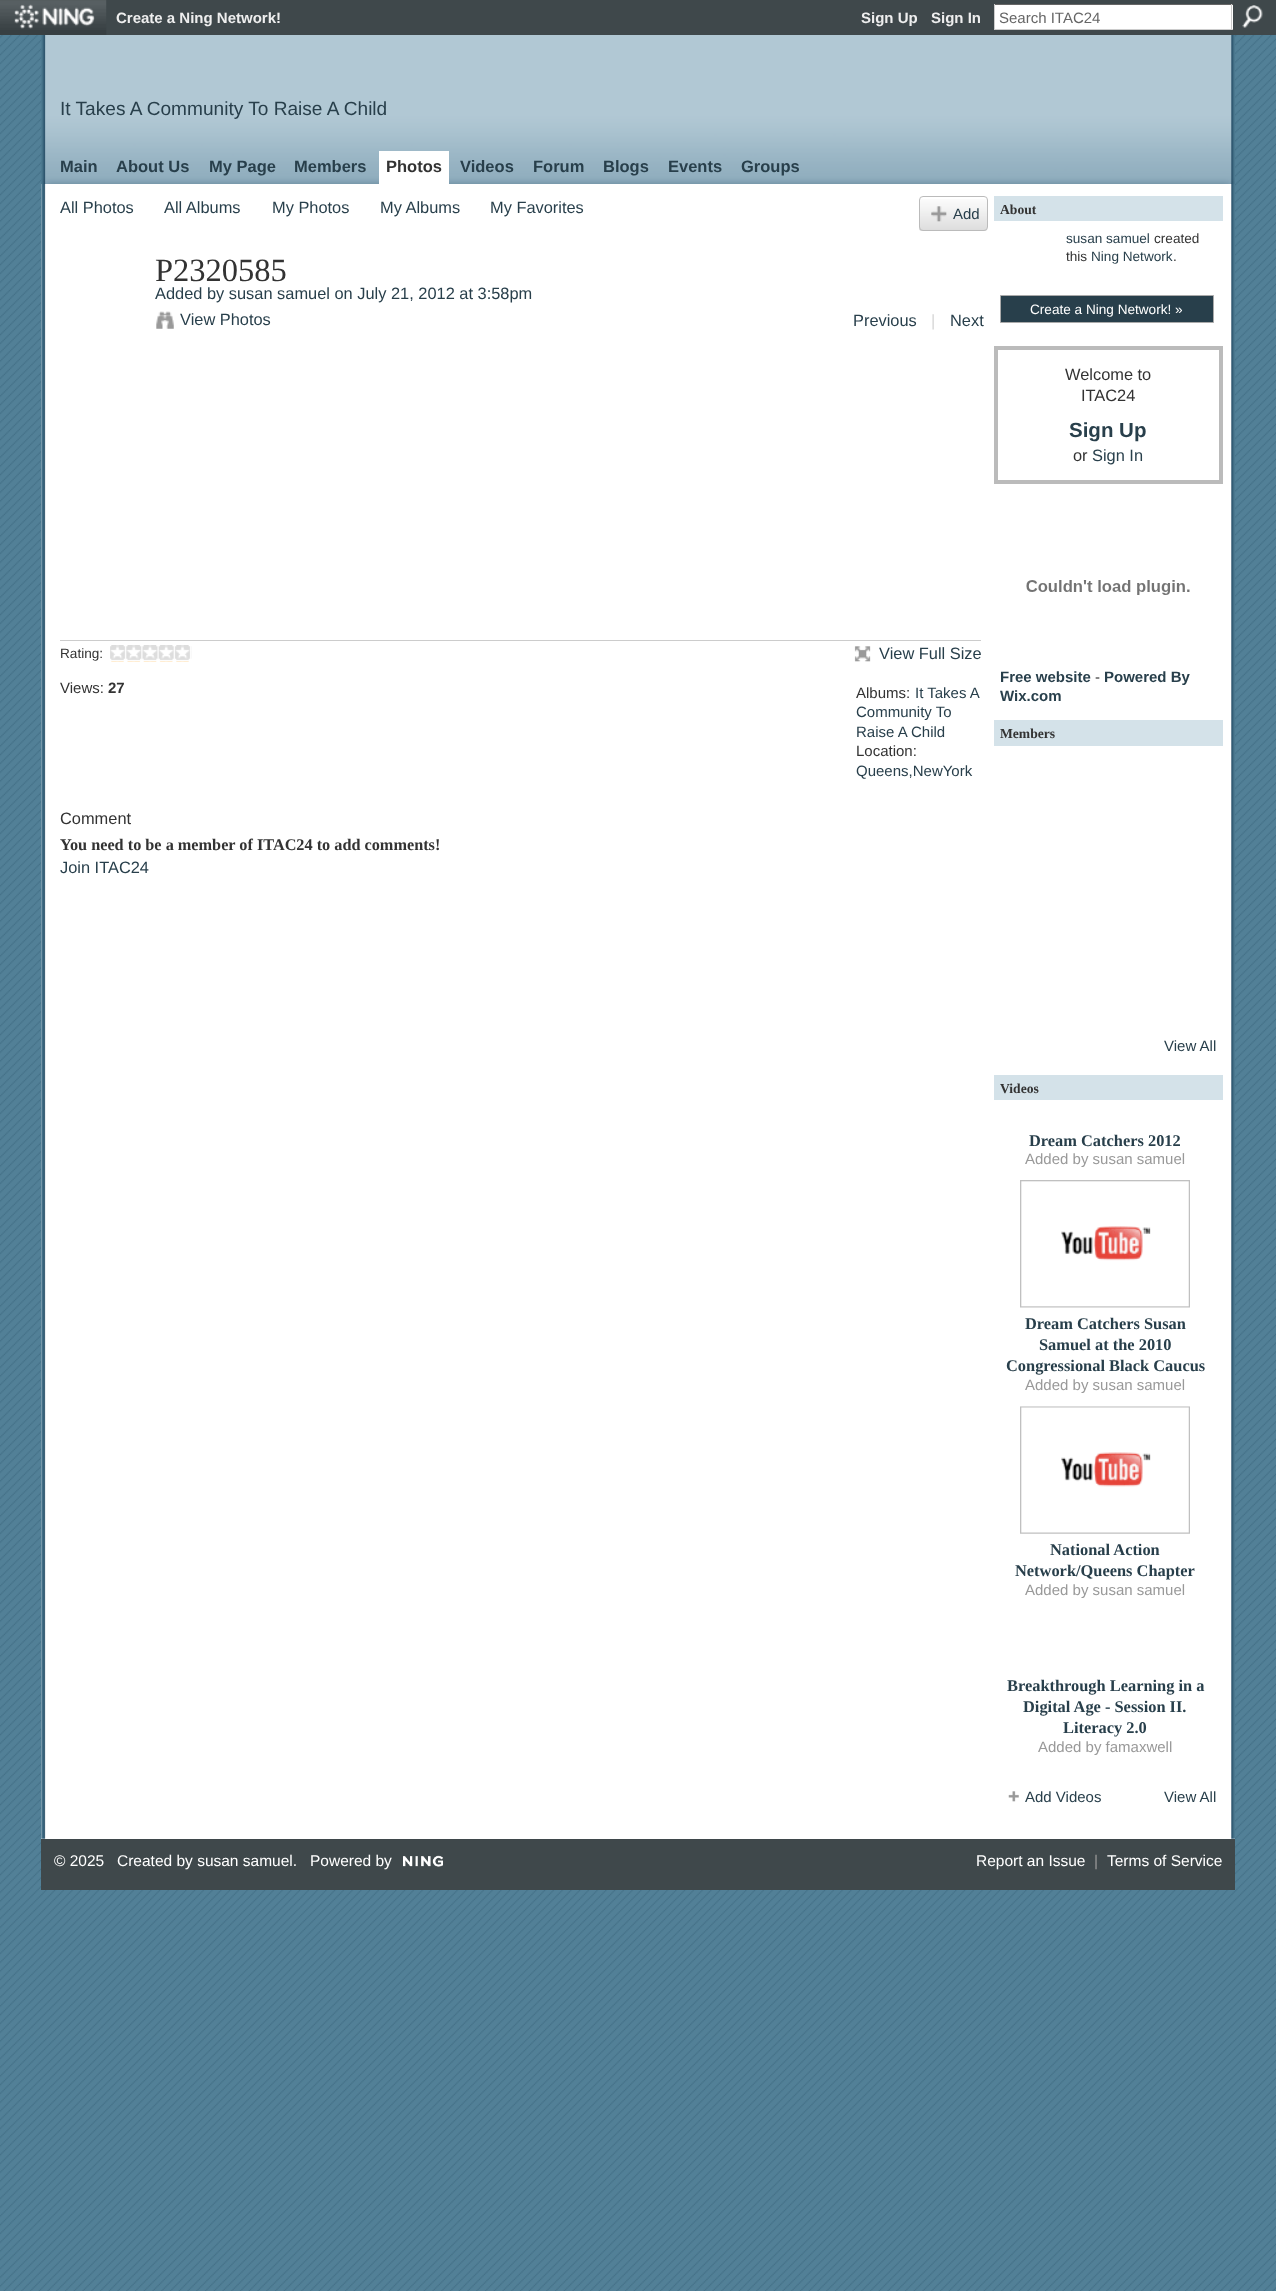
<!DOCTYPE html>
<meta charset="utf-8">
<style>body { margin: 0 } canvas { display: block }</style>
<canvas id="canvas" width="1276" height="2291"></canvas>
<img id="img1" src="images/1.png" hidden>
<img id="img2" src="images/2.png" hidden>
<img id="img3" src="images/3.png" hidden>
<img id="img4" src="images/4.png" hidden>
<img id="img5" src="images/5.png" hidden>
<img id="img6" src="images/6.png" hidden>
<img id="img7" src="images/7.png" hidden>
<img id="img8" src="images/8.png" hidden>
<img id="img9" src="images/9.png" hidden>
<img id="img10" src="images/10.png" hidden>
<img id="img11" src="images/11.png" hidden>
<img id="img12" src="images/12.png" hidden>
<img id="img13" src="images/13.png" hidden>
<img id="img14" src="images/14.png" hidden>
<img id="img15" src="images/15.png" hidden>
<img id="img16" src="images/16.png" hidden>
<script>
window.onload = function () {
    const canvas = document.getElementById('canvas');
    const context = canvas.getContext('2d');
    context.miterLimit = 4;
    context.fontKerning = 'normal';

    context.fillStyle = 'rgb(255, 255, 255)';
    context.fillRect(0, 0, 1276, 2291);
    context.drawImage(document.getElementById('img1'), 0, 35, 1276, 2256);
    context.fillStyle = 'rgb(63, 72, 75)';
    context.fillRect(0, 0, 1276, 35);
    context.drawImage(document.getElementById('img2'), 0, 0, 107, 35);
    context.drawImage(document.getElementById('img3'), 14, 4, 81, 25);
    context.fillStyle = 'rgb(255, 255, 255)';
    context.fillRect(995, 5, 238, 24);
    context.fillStyle = 'rgb(102, 102, 102)';
    context.fillRect(994, 4, 239, 1);
    context.fillStyle = 'rgb(204, 204, 204)';
    context.fillRect(1231, 4, 1, 26);
    context.fillRect(994, 29, 239, 1);
    context.fillRect(994, 4, 1, 26);
    context.drawImage(document.getElementById('img4'), 1242, 5, 21, 23);
    context.drawImage(document.getElementById('img5'), 41, 35, 1194, 149);
    context.fillStyle = 'rgb(255, 255, 255)';
    context.fillRect(41, 184, 1194, 1655);
    context.drawImage(document.getElementById('img6'), 41, 183, 1194, 1656);
    context.fillRect(379, 151, 70, 33);
    context.drawImage(document.getElementById('img7'), 919, 199, 69, 32);
    context.beginPath();
    context.roundRect(919.5, 196.5, 68, 34, 3.5);
    context.strokeStyle = 'rgb(187, 187, 187)';
    context.stroke();
    context.drawImage(document.getElementById('img8'), 931, 206, 16, 16);
    context.drawImage(document.getElementById('img9'), 156, 311, 18, 18);
    context.fillStyle = 'rgb(204, 204, 204)';
    context.fillRect(60, 640, 921, 1);
    context.drawImage(document.getElementById('img10'), 110, 645, 82, 17);
    context.drawImage(document.getElementById('img11'), 854, 646, 17, 16);
    context.fillStyle = 'rgb(212, 226, 233)';
    context.fillRect(994, 196, 229, 25);
    context.fillStyle = 'rgb(40, 63, 75)';
    context.beginPath();
    context.rect(1000.5, 295.5, 213, 27);
    context.fill();
    context.strokeStyle = 'rgb(170, 170, 170)';
    context.stroke();
    context.strokeStyle = 'rgb(187, 187, 187)';
    context.lineWidth = 4;
    context.strokeRect(996, 348, 225, 134);
    context.drawImage(document.getElementById('img12'), 1026, 580, 164, 15);
    context.fillStyle = 'rgb(212, 226, 233)';
    context.fillRect(994, 720, 229, 26);
    context.fillRect(994, 1075, 229, 25);
    context.drawImage(document.getElementById('img13'), 1020, 1180, 170, 128);
    context.drawImage(document.getElementById('img14'), 1020, 1406, 170, 128);
    context.drawImage(document.getElementById('img15'), 1008, 1791, 11, 11);
    context.fillStyle = 'rgb(63, 72, 75)';
    context.fillRect(41, 1839, 1194, 51);
    context.drawImage(document.getElementById('img16'), 403, 1855, 40, 12);
    context.font = 'bold 15px Liberation Sans';
    context.fillStyle = 'rgb(238, 238, 238)';
    context.fillText('Create a Ning Network!', 116, 23);
    context.fillText('Sign Up', 861, 23);
    context.fillText('Sign In', 931, 23);
    context.font = '15px Liberation Sans';
    context.fillStyle = 'rgb(102, 102, 102)';
    context.fillText('Search ITAC24', 999, 23);
    context.font = '19.1px Liberation Sans';
    context.fillStyle = 'rgb(40, 63, 75)';
    context.fillText('It Takes A Community To Raise A Child', 60, 115);
    context.font = 'bold 16.5px Liberation Sans';
    context.fillText('Main', 60, 172);
    context.fillText('About Us', 116, 172);
    context.fillText('My Page', 209, 172);
    context.fillText('Members', 294, 172);
    context.fillStyle = 'rgb(51, 51, 51)';
    context.fillText('Photos', 386, 172);
    context.fillStyle = 'rgb(40, 63, 75)';
    context.fillText('Videos', 460, 172);
    context.fillText('Forum', 533, 172);
    context.fillText('Blogs', 603, 172);
    context.fillText('Events', 668, 172);
    context.fillText('Groups', 741, 172);
    context.font = '16.4px Liberation Sans';
    context.fillText('All Photos', 60, 213);
    context.fillText('All Albums', 164, 213);
    context.fillText('My Photos', 272, 213);
    context.fillText('My Albums', 380, 213);
    context.fillText('My Favorites', 490, 213);
    context.font = '15px Liberation Sans';
    context.fillText('Add', 953, 219);
    context.font = '32.5px Liberation Serif';
    context.fillStyle = 'rgb(51, 51, 51)';
    context.fillText('P2320585', 155, 281);
    context.font = '16.4px Liberation Sans';
    context.fillStyle = 'rgb(40, 63, 75)';
    context.fillText('Added by susan samuel on July 21, 2012 at 3:58pm', 155, 299);
    context.fillText('View Photos', 180, 325);
    context.fillText('Previous', 853, 326);
    context.fillStyle = 'rgb(214, 214, 214)';
    context.fillText('|', 931, 326);
    context.fillStyle = 'rgb(40, 63, 75)';
    context.fillText('Next', 950, 326);
    context.font = '13.6px Liberation Sans';
    context.fillStyle = 'rgb(51, 51, 51)';
    context.fillText('Rating:', 60, 658);
    context.font = '15px Liberation Sans';
    context.fillText('Views:', 60, 693);
    context.font = 'bold 15px Liberation Sans';
    context.fillText('27', 108, 693);
    context.font = '16.4px Liberation Sans';
    context.fillStyle = 'rgb(40, 63, 75)';
    context.fillText('View Full Size', 879, 659);
    context.font = '15px Liberation Sans';
    context.fillStyle = 'rgb(51, 51, 51)';
    context.fillText('Albums:', 856, 698);
    context.fillStyle = 'rgb(40, 63, 75)';
    context.fillText('It Takes A', 915, 698);
    context.fillText('Community To', 856, 717);
    context.fillText('Raise A Child', 856, 737);
    context.fillStyle = 'rgb(51, 51, 51)';
    context.fillText('Location:', 856, 756);
    context.fillStyle = 'rgb(40, 63, 75)';
    context.fillText('Queens,NewYork', 856, 776);
    context.font = '16.4px Liberation Sans';
    context.fillStyle = 'rgb(51, 51, 51)';
    context.fillText('Comment', 60, 824);
    context.font = 'bold 16.25px Liberation Serif';
    context.fillText('You need to be a member of ITAC24 to add comments!', 60, 850);
    context.font = '16.4px Liberation Sans';
    context.fillStyle = 'rgb(40, 63, 75)';
    context.fillText('Join ITAC24', 60, 873);
    context.font = 'bold 13.6px Liberation Serif';
    context.fillStyle = 'rgb(51, 51, 51)';
    context.fillText('About', 1000, 214);
    context.font = '13.6px Liberation Sans';
    context.fillStyle = 'rgb(40, 63, 75)';
    context.fillText('susan samuel', 1066, 243);
    context.fillStyle = 'rgb(51, 51, 51)';
    context.fillText('created', 1154, 243);
    context.fillText('this', 1066, 261);
    context.fillStyle = 'rgb(40, 63, 75)';
    context.fillText('Ning Network', 1091, 261);
    context.fillStyle = 'rgb(51, 51, 51)';
    context.fillText('.', 1173, 261);
    context.fillStyle = 'rgb(255, 255, 255)';
    context.fillText('Create a Ning Network! »', 1030, 314);
    context.font = '16.4px Liberation Sans';
    context.fillStyle = 'rgb(51, 51, 51)';
    context.fillText('Welcome to', 1065, 380);
    context.fillText('ITAC24', 1081, 401);
    context.font = 'bold 20.5px Liberation Sans';
    context.fillStyle = 'rgb(40, 63, 75)';
    context.fillText('Sign Up', 1069, 437);
    context.font = '16.4px Liberation Sans';
    context.fillStyle = 'rgb(51, 51, 51)';
    context.fillText('or', 1073, 461);
    context.fillStyle = 'rgb(40, 63, 75)';
    context.fillText('Sign In', 1092, 461);
    context.font = 'bold 15px Liberation Sans';
    context.fillText('Free website', 1000, 682);
    context.font = '15px Liberation Sans';
    context.fillStyle = 'rgb(51, 51, 51)';
    context.fillText('-', 1095, 682);
    context.font = 'bold 15px Liberation Sans';
    context.fillStyle = 'rgb(40, 63, 75)';
    context.fillText('Powered By', 1104, 682);
    context.fillText('Wix.com', 1000, 701);
    context.font = 'bold 13.6px Liberation Serif';
    context.fillStyle = 'rgb(51, 51, 51)';
    context.fillText('Members', 1000, 738);
    context.font = '15px Liberation Sans';
    context.fillStyle = 'rgb(40, 63, 75)';
    context.fillText('View All', 1164, 1051);
    context.font = 'bold 13.6px Liberation Serif';
    context.fillStyle = 'rgb(51, 51, 51)';
    context.fillText('Videos', 1000, 1093);
    context.font = 'bold 16.4px Liberation Serif';
    context.fillStyle = 'rgb(40, 63, 75)';
    context.fillText('Dream Catchers 2012', 1029, 1146);
    context.font = '15px Liberation Sans';
    context.fillStyle = 'rgb(153, 153, 153)';
    context.fillText('Added by susan samuel', 1025, 1164);
    context.font = 'bold 16.4px Liberation Serif';
    context.fillStyle = 'rgb(40, 63, 75)';
    context.fillText('Dream Catchers Susan', 1025, 1329);
    context.fillText('Samuel at the 2010', 1039, 1350);
    context.fillText('Congressional Black Caucus', 1006, 1371);
    context.font = '15px Liberation Sans';
    context.fillStyle = 'rgb(153, 153, 153)';
    context.fillText('Added by susan samuel', 1025, 1390);
    context.font = 'bold 16.4px Liberation Serif';
    context.fillStyle = 'rgb(40, 63, 75)';
    context.fillText('National Action', 1050, 1555);
    context.fillText('Network/Queens Chapter', 1015, 1576);
    context.font = '15px Liberation Sans';
    context.fillStyle = 'rgb(153, 153, 153)';
    context.fillText('Added by susan samuel', 1025, 1595);
    context.font = 'bold 16.4px Liberation Serif';
    context.fillStyle = 'rgb(40, 63, 75)';
    context.fillText('Breakthrough Learning in a', 1007, 1691);
    context.fillText('Digital Age - Session II.', 1023, 1712);
    context.fillText('Literacy 2.0', 1063, 1733);
    context.font = '15px Liberation Sans';
    context.fillStyle = 'rgb(153, 153, 153)';
    context.fillText('Added by famaxwell', 1038, 1752);
    context.fillStyle = 'rgb(40, 63, 75)';
    context.fillText('Add Videos', 1025, 1802);
    context.fillText('View All', 1164, 1802);
    context.font = '15.5px Liberation Sans';
    context.fillStyle = 'rgb(255, 255, 255)';
    context.fillText('© 2025', 54, 1866);
    context.fillText('Created by susan samuel.', 117, 1866);
    context.fillText('Powered by', 310, 1866);
    context.fillText('Report an Issue', 976, 1866);
    context.fillStyle = 'rgb(153, 153, 153)';
    context.fillText('|', 1094, 1866);
    context.fillStyle = 'rgb(255, 255, 255)';
    context.fillText('Terms of Service', 1107, 1866);
};
</script>
